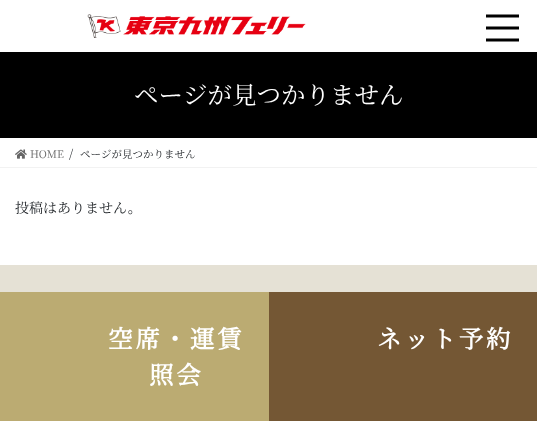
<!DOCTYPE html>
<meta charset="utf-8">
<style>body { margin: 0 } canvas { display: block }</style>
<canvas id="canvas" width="537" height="421"></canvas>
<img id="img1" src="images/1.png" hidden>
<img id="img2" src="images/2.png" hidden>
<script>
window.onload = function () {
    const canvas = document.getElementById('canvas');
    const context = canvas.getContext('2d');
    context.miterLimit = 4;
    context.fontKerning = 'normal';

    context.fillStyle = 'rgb(255, 255, 255)';
    context.fillRect(0, 0, 537, 421);
    context.drawImage(document.getElementById('img1'), 87, 14, 219, 24);
    context.beginPath();
    context.moveTo(486, 16);
    context.lineTo(519, 16);
    context.moveTo(486, 28);
    context.lineTo(519, 28);
    context.moveTo(486, 40);
    context.lineTo(519, 40);
    context.strokeStyle = 'rgb(0, 0, 0)';
    context.lineWidth = 3;
    context.stroke();
    context.fillStyle = 'rgb(0, 0, 0)';
    context.fillRect(0, 52, 537, 86);
    context.fillStyle = 'rgb(242, 242, 242)';
    context.fillRect(0, 167, 537, 1);
    context.drawImage(document.getElementById('img2'), 15, 149, 12, 10);
    context.fillStyle = 'rgb(187, 171, 114)';
    context.fillRect(0, 292, 269, 129);
    context.fillStyle = 'rgb(116, 87, 52)';
    context.fillRect(269, 292, 268, 129);
    context.fillStyle = 'rgb(229, 225, 213)';
    context.fillRect(0, 265, 537, 27);
    context.font = '200 24.5px Noto Serif JP';
    context.fillStyle = 'rgb(255, 255, 255)';
    context.fillText('ページが見つかりません', 134, 104);
    context.font = '200 10.5px Noto Serif JP';
    context.fillStyle = 'rgb(102, 102, 102)';
    context.fillText('HOME', 30, 158);
    context.font = '200 12px Noto Serif JP';
    context.fillStyle = 'rgb(33, 37, 41)';
    context.fillText('/', 69, 158);
    context.font = '200 10.5px Noto Serif JP';
    context.fillText('ページが見つかりません', 80, 158);
    context.font = '200 14px Noto Serif JP';
    context.fillText('投稿はありません。', 15, 213);
    context.letterSpacing = '2.75px';
    context.font = 'bold 24.5px Noto Serif JP';
    context.fillStyle = 'rgb(255, 255, 255)';
    context.fillText('空席・運賃', 108, 348);
    context.fillText('照会', 149, 384);
    context.fillText('ネット予約', 377, 348);
};
</script>
